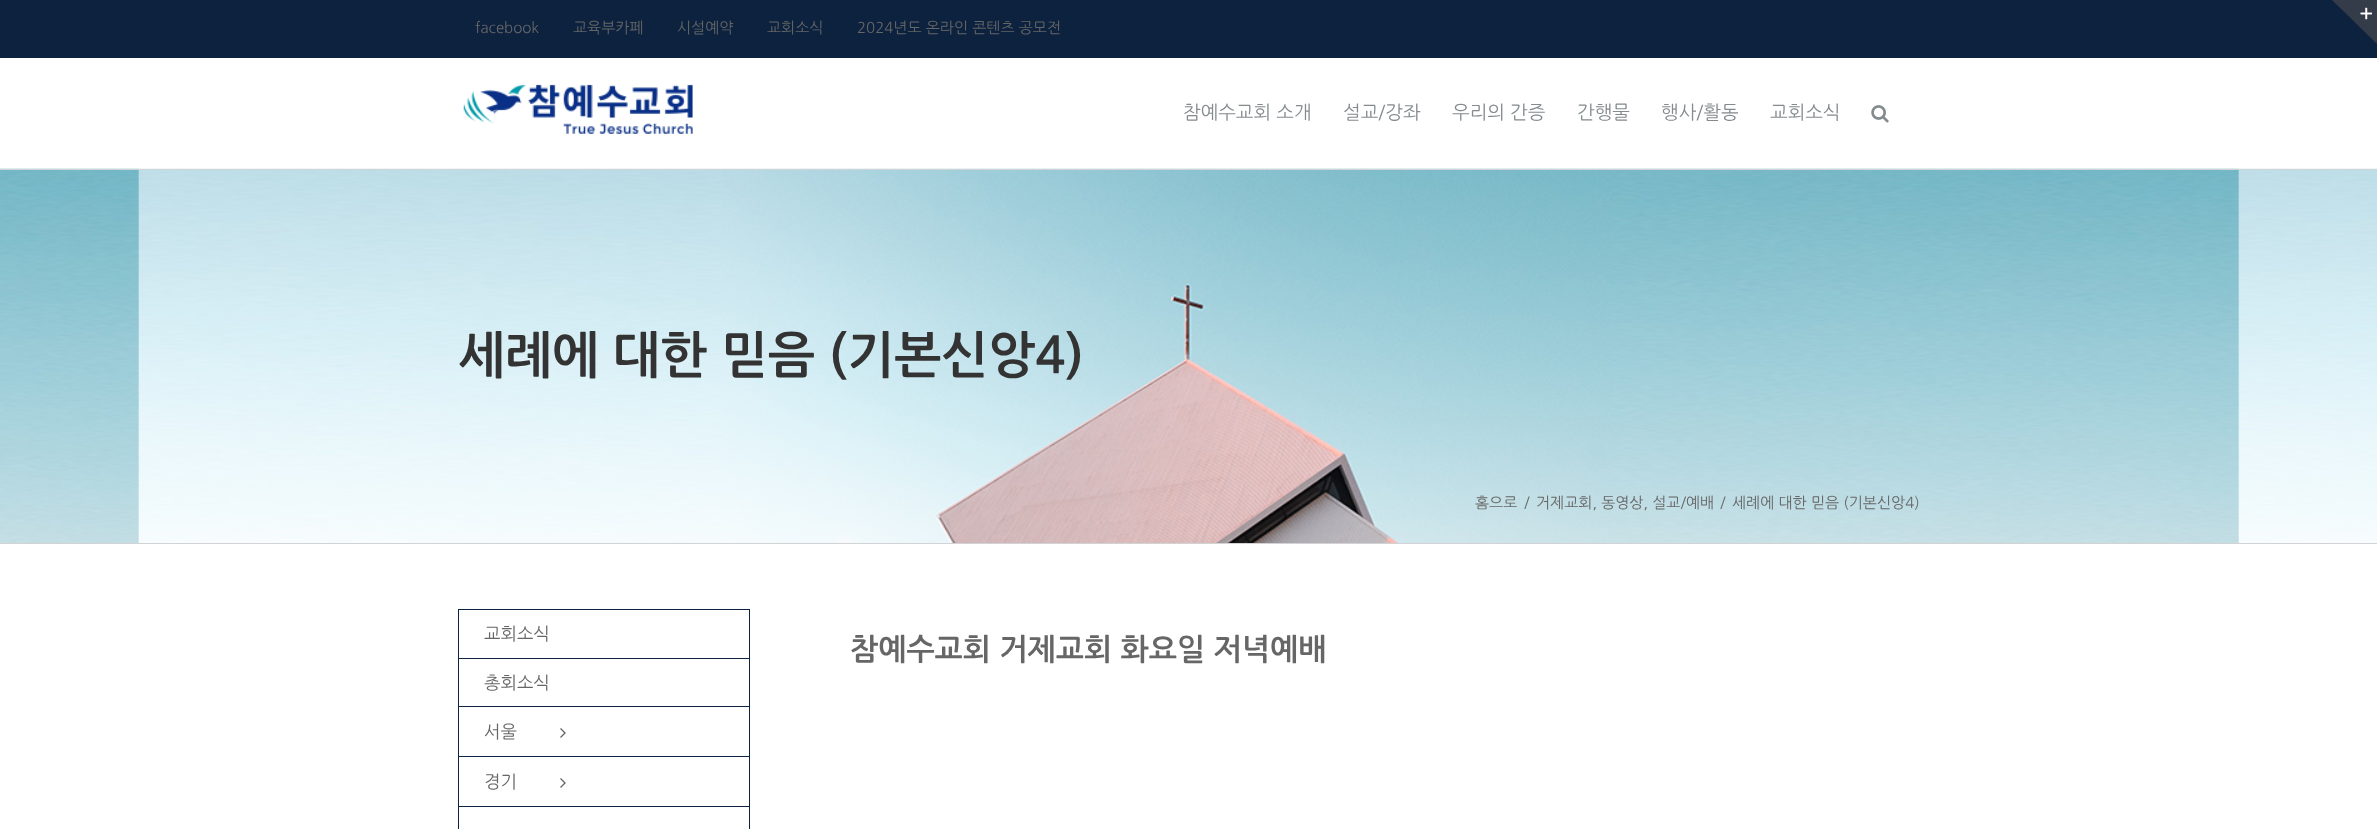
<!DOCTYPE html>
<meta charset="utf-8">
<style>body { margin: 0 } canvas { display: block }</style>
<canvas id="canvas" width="2377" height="829"></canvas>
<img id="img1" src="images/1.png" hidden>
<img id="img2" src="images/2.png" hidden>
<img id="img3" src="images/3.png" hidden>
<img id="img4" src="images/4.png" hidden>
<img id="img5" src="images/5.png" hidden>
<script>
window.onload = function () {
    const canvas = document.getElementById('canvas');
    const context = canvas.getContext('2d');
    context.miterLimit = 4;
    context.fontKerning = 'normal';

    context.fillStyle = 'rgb(255, 255, 255)';
    context.fillRect(0, 0, 2377, 829);
    context.fillStyle = 'rgb(12, 34, 63)';
    context.fillRect(0, 0, 2377, 58);
    context.drawImage(document.getElementById('img1'), 463, 84, 230, 50);
    context.drawImage(document.getElementById('img2'), 1871, 105, 18, 18);
    context.fillStyle = 'rgb(52, 59, 73)';
    context.beginPath();
    context.moveTo(2332, 0);
    context.lineTo(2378, 0);
    context.lineTo(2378, 45);
    context.closePath();
    context.fill();
    context.drawImage(document.getElementById('img3'), 2360, 7, 12, 13);
    context.drawImage(document.getElementById('img4'), 0, 168, 2377, 375);
    context.fillStyle = 'rgb(210, 211, 212)';
    context.fillRect(0, 169, 2377, 1);
    context.fillRect(0, 543, 2377, 1);
    context.fillStyle = 'rgb(12, 34, 63)';
    context.fillRect(458, 609, 292, 1);
    context.fillRect(749, 609, 1, 220);
    context.fillRect(458, 609, 1, 220);
    context.fillRect(459, 658, 290, 1);
    context.fillRect(459, 706, 290, 1);
    context.fillRect(459, 756, 290, 1);
    context.drawImage(document.getElementById('img5'), 560, 728, 6, 10);
    context.fillRect(459, 806, 290, 1);
    context.drawImage(document.getElementById('img5'), 560, 778, 6, 10);
    context.font = '15px NanumGothic';
    context.fillStyle = 'rgb(102, 102, 102)';
    context.fillText('facebook', 475, 33);
    context.fillText('교육부카페', 573, 33);
    context.fillText('시설예약', 677, 33);
    context.fillText('교회소식', 767, 33);
    context.fillText('2024년도 온라인 콘텐츠 공모전', 857, 33);
    context.font = '18.75px NanumGothic';
    context.fillStyle = 'rgb(132, 139, 142)';
    context.fillText('참예수교회 소개', 1183, 119);
    context.fillText('설교/강좌', 1343, 119);
    context.fillText('우리의 간증', 1452, 119);
    context.fillText('간행물', 1577, 119);
    context.fillText('행사/활동', 1661, 119);
    context.fillText('교회소식', 1770, 119);
    context.font = 'bold 50px NanumGothic';
    context.fillStyle = 'rgb(51, 51, 51)';
    context.fillText('세례에 대한 믿음 (기본신앙4)', 458, 373);
    context.font = '15px NanumGothic';
    context.fillStyle = 'rgb(102, 102, 102)';
    context.fillText('홈으로', 1475, 508);
    context.fillText('/', 1524, 508);
    context.fillText('거제교회, 동영상, 설교/예배', 1536, 508);
    context.fillText('/', 1720, 508);
    context.fillText('세례에 대한 믿음 (기본신앙4)', 1732, 508);
    context.font = '17.5px NanumGothic';
    context.fillText('교회소식', 484, 640);
    context.fillText('총회소식', 484, 689);
    context.fillText('서울', 484, 738);
    context.fillText('경기', 484, 788);
    context.font = 'bold 30px NanumGothic';
    context.fillText('참예수교회 거제교회 화요일 저녁예배', 850, 660);
};
</script>
